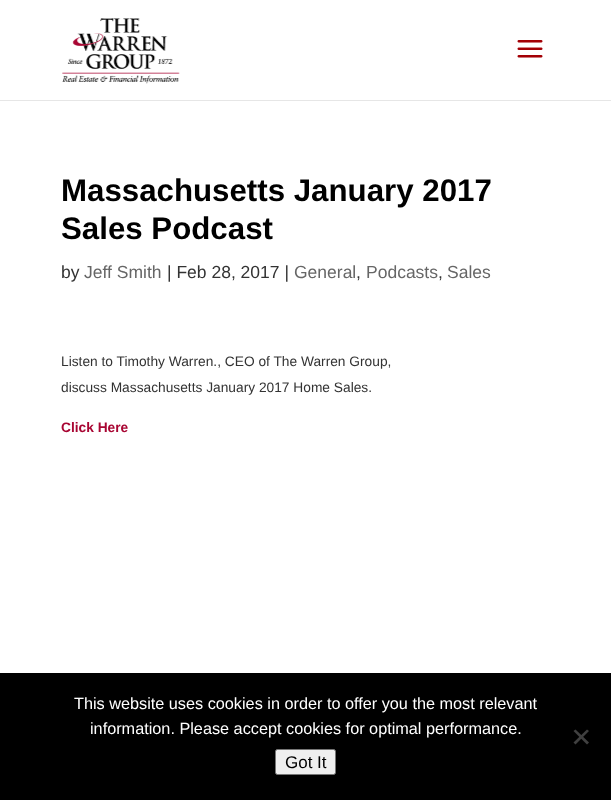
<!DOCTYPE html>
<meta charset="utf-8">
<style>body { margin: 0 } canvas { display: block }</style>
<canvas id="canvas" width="611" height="800"></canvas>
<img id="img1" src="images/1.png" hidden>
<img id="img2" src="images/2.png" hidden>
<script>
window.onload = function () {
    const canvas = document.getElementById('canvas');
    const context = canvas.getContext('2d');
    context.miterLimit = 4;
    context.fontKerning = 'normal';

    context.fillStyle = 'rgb(255, 255, 255)';
    context.fillRect(0, 0, 611, 800);
    context.fillStyle = 'rgb(230, 230, 230)';
    context.fillRect(0, 100, 611, 1);
    context.drawImage(document.getElementById('img1'), 62, 18, 118, 66);
    context.drawImage(document.getElementById('img2'), 517, 40, 26, 18);
    context.fillStyle = 'rgb(0, 0, 0)';
    context.fillRect(0, 673, 611, 127);
    context.fillStyle = 'rgb(64, 64, 64)';
    context.beginPath();
    context.moveTo(587, 729.5);
    context.lineTo(589, 731);
    context.lineTo(575.5, 744.5);
    context.lineTo(573.5, 742.5);
    context.closePath();
    context.fill();
    context.beginPath();
    context.moveTo(573.5, 731);
    context.lineTo(575.5, 729.5);
    context.lineTo(589, 742.5);
    context.lineTo(587, 744.5);
    context.closePath();
    context.fill();
    context.fillStyle = 'rgb(239, 239, 239)';
    context.beginPath();
    context.roundRect(275.5, 749.5, 60, 25, 2);
    context.fill();
    context.strokeStyle = 'rgb(118, 118, 118)';
    context.stroke();
    context.font = 'bold 31.25px Liberation Sans';
    context.fillStyle = 'rgb(0, 0, 0)';
    context.fillText('Massachusetts January 2017', 61, 201);
    context.fillText('Sales Podcast', 61, 239);
    context.font = '17.5px Liberation Sans';
    context.fillStyle = 'rgb(51, 51, 51)';
    context.fillText('by', 61, 278);
    context.fillStyle = 'rgb(102, 102, 102)';
    context.fillText('Jeff Smith', 84, 278);
    context.fillStyle = 'rgb(51, 51, 51)';
    context.fillText('| Feb 28, 2017 |', 167, 278);
    context.fillStyle = 'rgb(102, 102, 102)';
    context.fillText('General', 294, 278);
    context.fillStyle = 'rgb(51, 51, 51)';
    context.fillText(',', 356, 278);
    context.fillStyle = 'rgb(102, 102, 102)';
    context.fillText('Podcasts', 366, 278);
    context.fillStyle = 'rgb(51, 51, 51)';
    context.fillText(',', 438, 278);
    context.fillStyle = 'rgb(102, 102, 102)';
    context.fillText('Sales', 447, 278);
    context.font = '13.75px Liberation Sans';
    context.fillStyle = 'rgb(51, 51, 51)';
    context.fillText('Listen to Timothy Warren., CEO of The Warren Group,', 61, 366);
    context.fillText('discuss Massachusetts January 2017 Home Sales.', 61, 392);
    context.font = 'bold 13.75px Liberation Sans';
    context.fillStyle = 'rgb(168, 5, 50)';
    context.fillText('Click Here', 61, 432);
    context.font = '16.25px Liberation Sans';
    context.fillStyle = 'rgb(255, 255, 255)';
    context.fillText('This website uses cookies in order to offer you the most relevant', 74, 709);
    context.fillText('information. Please accept cookies for optimal performance.', 90, 734);
    context.font = '17px Liberation Sans';
    context.fillStyle = 'rgb(0, 0, 0)';
    context.fillText('Got It', 285, 768);
};
</script>
